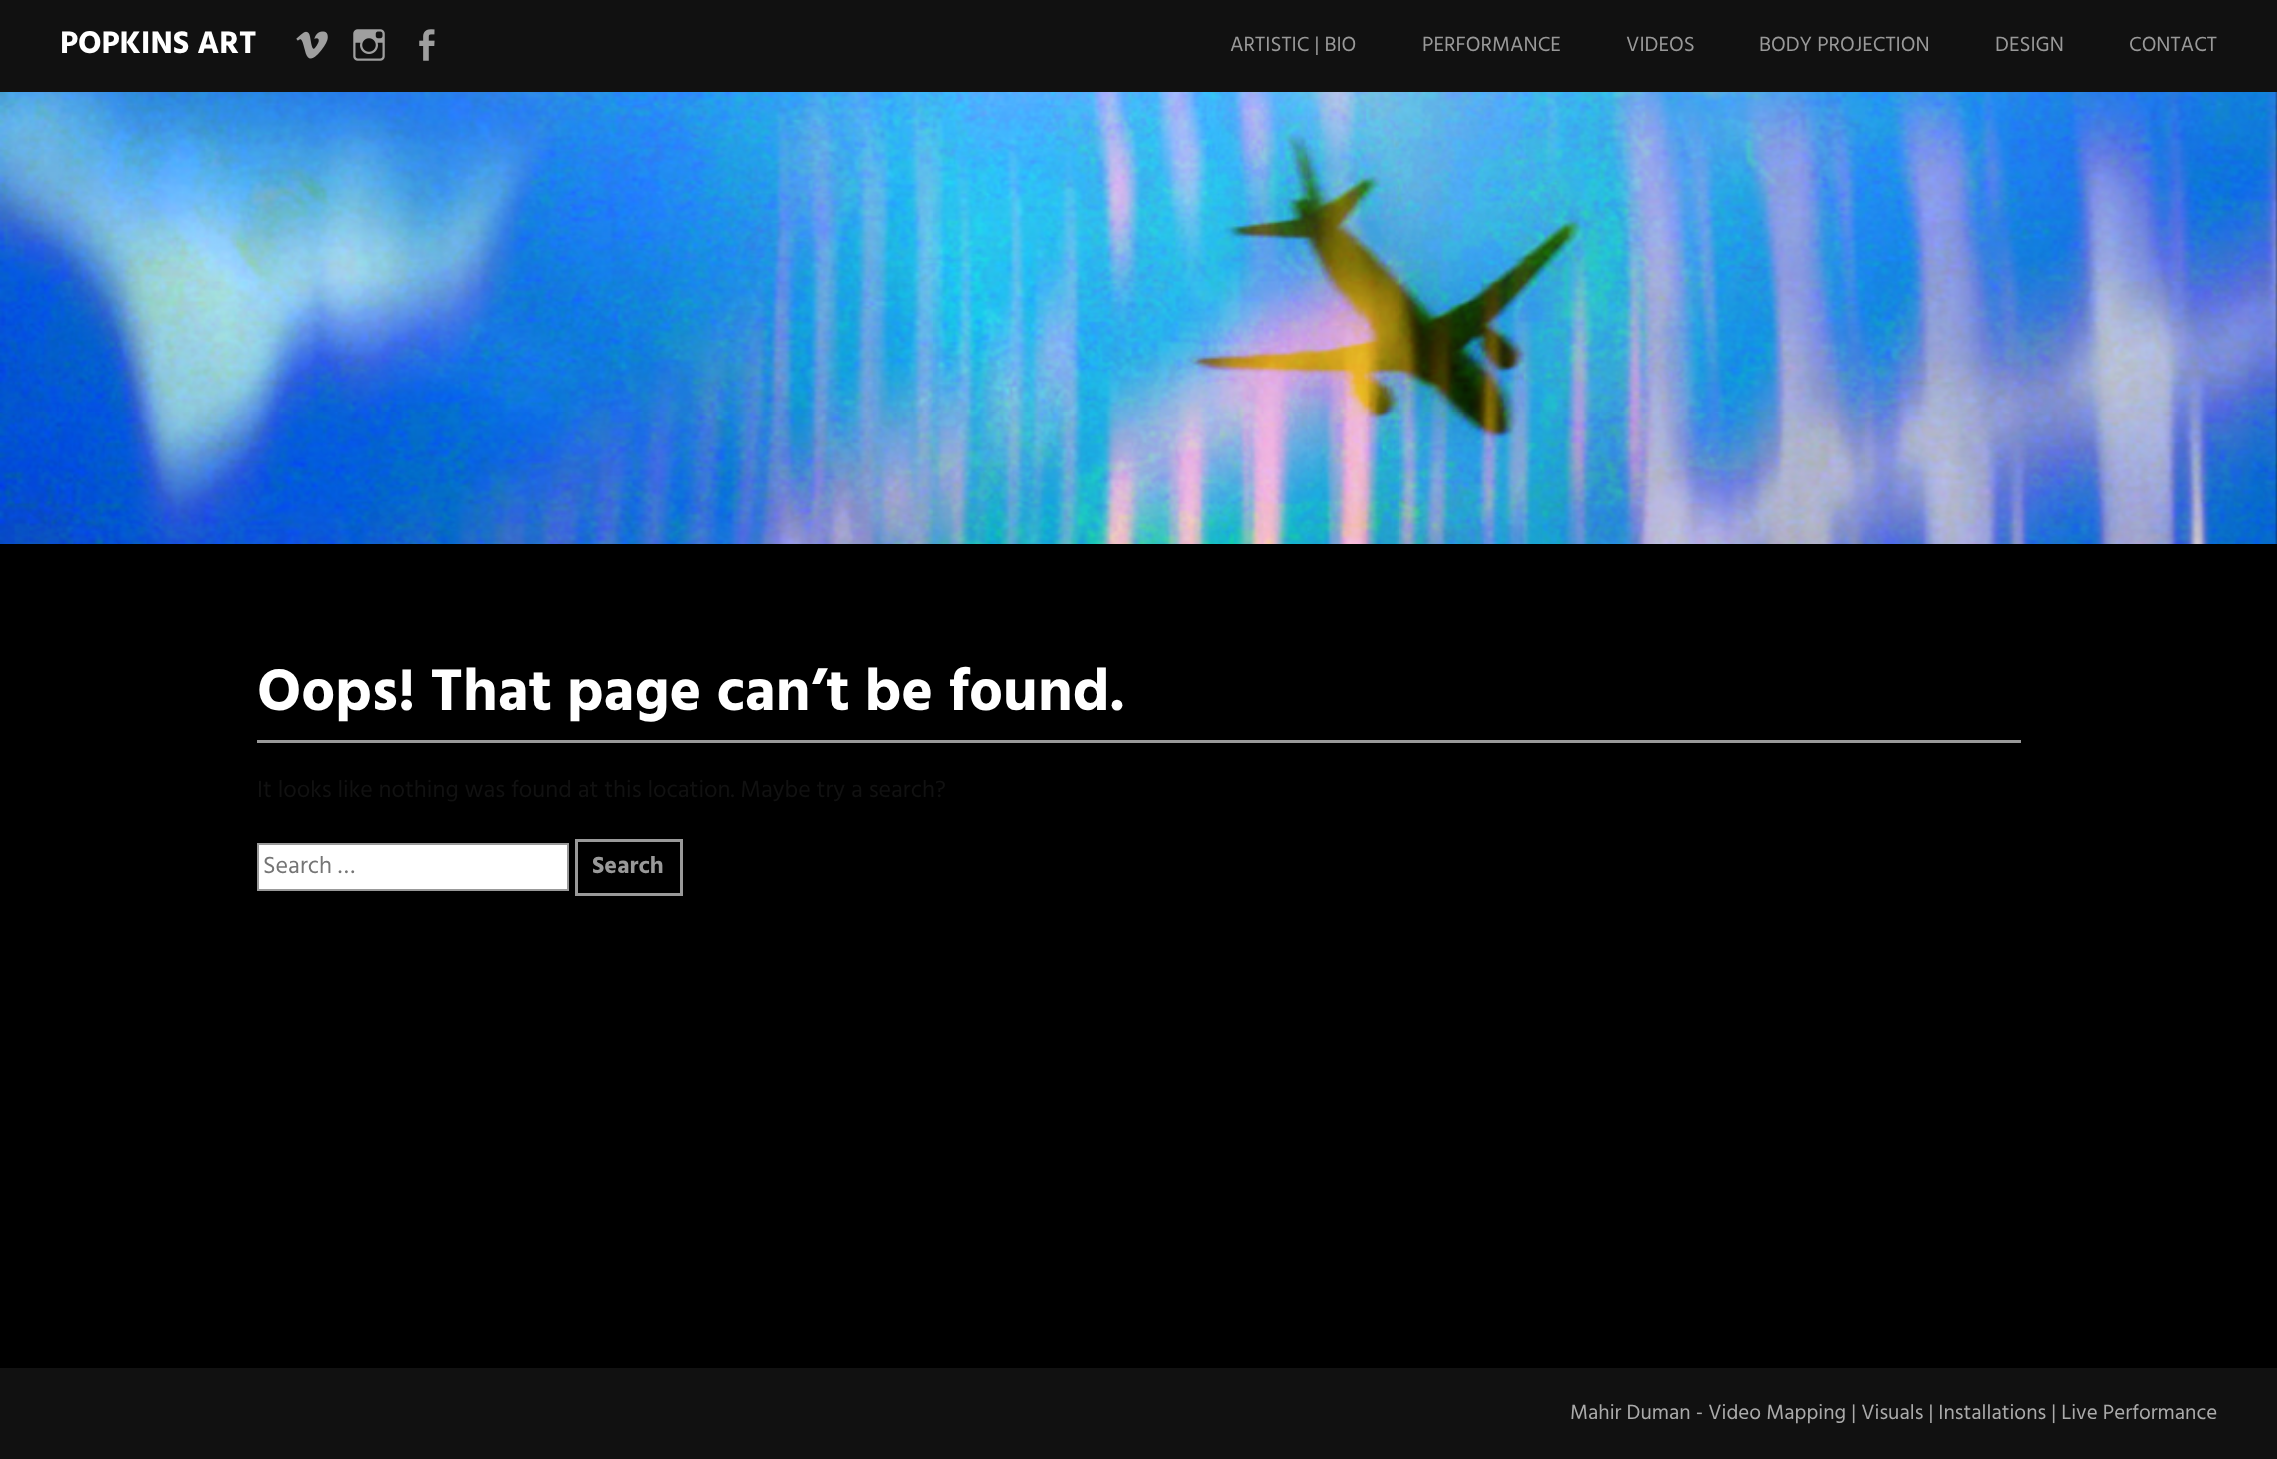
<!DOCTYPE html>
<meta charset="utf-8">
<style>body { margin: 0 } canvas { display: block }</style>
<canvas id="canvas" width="2277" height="1459"></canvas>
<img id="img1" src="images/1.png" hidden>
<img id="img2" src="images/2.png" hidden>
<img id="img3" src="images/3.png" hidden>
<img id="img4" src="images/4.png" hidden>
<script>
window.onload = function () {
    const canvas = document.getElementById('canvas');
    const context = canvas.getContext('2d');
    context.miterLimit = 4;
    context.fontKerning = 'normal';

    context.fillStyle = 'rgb(0, 0, 0)';
    context.fillRect(0, 0, 2277, 1459);
    context.fillStyle = 'rgb(17, 17, 17)';
    context.fillRect(0, 0, 2277, 92);
    context.drawImage(document.getElementById('img1'), 296, 31, 32, 28);
    context.drawImage(document.getElementById('img2'), 353, 29, 32, 32);
    context.drawImage(document.getElementById('img3'), 419, 29, 16, 32);
    context.drawImage(document.getElementById('img4'), 0, 92, 2277, 452);
    context.fillStyle = 'rgb(153, 153, 153)';
    context.fillRect(257, 740, 1764, 3);
    context.fillStyle = 'rgb(255, 255, 255)';
    context.beginPath();
    context.rect(258, 844, 310, 46);
    context.fill();
    context.strokeStyle = 'rgb(153, 153, 153)';
    context.lineWidth = 2;
    context.stroke();
    context.lineWidth = 3;
    context.strokeRect(576.5, 840.5, 105, 54);
    context.fillStyle = 'rgb(17, 17, 17)';
    context.fillRect(0, 1368, 2277, 91);
    context.font = 'bold 32px Hind';
    context.fillStyle = 'rgb(255, 255, 255)';
    context.fillText('POPKINS ART', 60, 53);
    context.font = '21px Hind';
    context.fillStyle = 'rgb(153, 153, 153)';
    context.fillText('ARTISTIC | BIO', 1230, 51);
    context.fillText('PERFORMANCE', 1422, 51);
    context.fillText('VIDEOS', 1626, 51);
    context.fillText('BODY PROJECTION', 1759, 51);
    context.fillText('DESIGN', 1995, 51);
    context.fillText('CONTACT', 2129, 51);
    context.font = 'bold 60px Hind';
    context.fillStyle = 'rgb(255, 255, 255)';
    context.fillText('Oops! That page can’t be found.', 257, 710);
    context.font = '24px Hind';
    context.fillStyle = 'rgb(17, 17, 17)';
    context.fillText('It looks like nothing was found at this location. Maybe try a search?', 257, 797);
    context.fillStyle = 'rgb(117, 117, 117)';
    context.fillText('Search …', 263, 873);
    context.font = 'bold 24px Hind';
    context.fillStyle = 'rgb(153, 153, 153)';
    context.fillText('Search', 592, 873);
    context.font = '21px Hind';
    context.fillStyle = 'rgb(170, 170, 170)';
    context.fillText('Mahir Duman - Video Mapping | Visuals | Installations | Live Performance', 1570, 1419);
};
</script>
